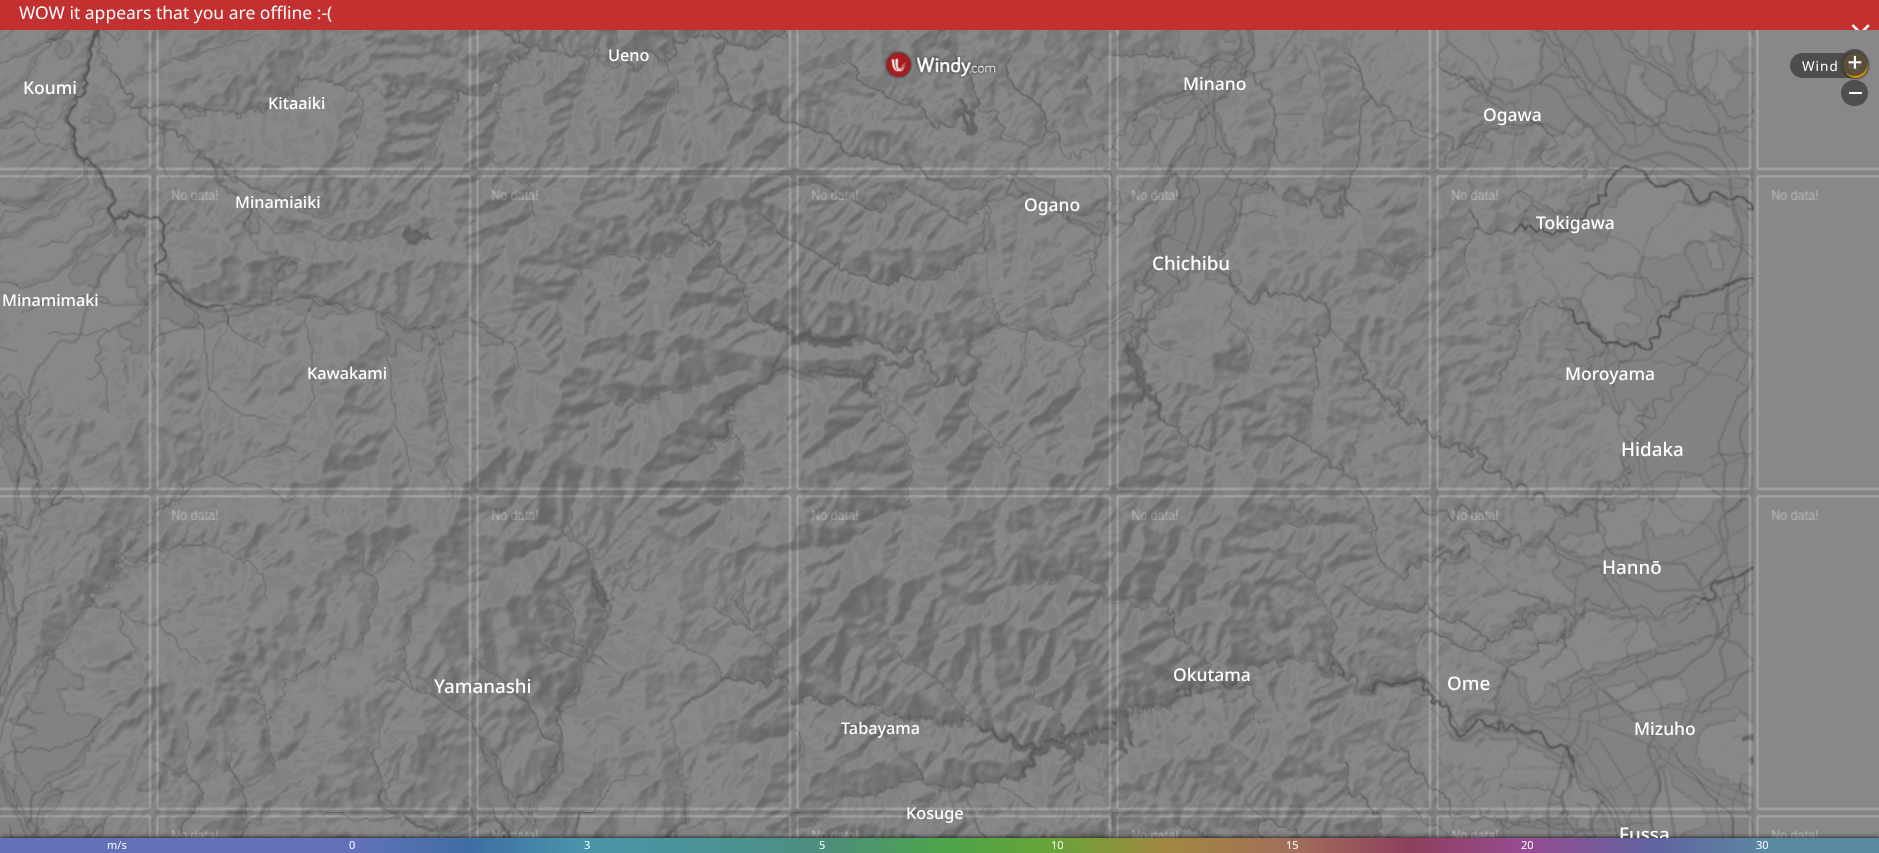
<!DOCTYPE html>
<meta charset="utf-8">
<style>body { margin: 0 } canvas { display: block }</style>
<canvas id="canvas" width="1879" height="853"></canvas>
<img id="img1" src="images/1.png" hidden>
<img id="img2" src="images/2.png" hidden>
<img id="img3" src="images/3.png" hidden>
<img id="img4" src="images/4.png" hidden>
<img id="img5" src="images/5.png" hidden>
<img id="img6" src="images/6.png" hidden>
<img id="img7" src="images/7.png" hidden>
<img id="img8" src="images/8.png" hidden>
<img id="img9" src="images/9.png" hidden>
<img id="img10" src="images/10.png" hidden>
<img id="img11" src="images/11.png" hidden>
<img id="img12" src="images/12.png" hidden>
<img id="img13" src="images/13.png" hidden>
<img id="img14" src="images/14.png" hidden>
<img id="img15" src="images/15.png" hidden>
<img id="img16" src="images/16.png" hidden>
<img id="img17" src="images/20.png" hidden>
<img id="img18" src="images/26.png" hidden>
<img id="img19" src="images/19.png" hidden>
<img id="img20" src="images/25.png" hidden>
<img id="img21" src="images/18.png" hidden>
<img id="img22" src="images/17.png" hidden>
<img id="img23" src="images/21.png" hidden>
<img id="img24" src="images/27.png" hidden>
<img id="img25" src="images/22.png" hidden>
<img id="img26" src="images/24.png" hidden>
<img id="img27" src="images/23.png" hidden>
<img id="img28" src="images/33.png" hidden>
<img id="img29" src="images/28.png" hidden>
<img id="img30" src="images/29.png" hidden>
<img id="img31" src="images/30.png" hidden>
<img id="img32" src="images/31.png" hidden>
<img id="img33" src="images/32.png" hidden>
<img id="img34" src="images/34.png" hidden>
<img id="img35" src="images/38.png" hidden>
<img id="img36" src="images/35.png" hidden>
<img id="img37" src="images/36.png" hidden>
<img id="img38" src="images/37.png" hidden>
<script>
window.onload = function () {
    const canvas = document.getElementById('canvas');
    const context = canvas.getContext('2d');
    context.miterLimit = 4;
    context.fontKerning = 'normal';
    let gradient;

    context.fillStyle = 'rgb(128, 128, 128)';
    context.fillRect(0, 0, 1879, 853);
    context.fillStyle = 'rgb(196, 47, 47)';
    context.fillRect(0, 0, 1879, 30);
    context.drawImage(document.getElementById('img1'), 1851, 24, 19, 6);
    context.drawImage(document.getElementById('img2'), 0, 30, 154, 142);
    context.drawImage(document.getElementById('img3'), 154, 30, 320, 142);
    context.drawImage(document.getElementById('img3'), 474, 30, 320, 142);
    context.drawImage(document.getElementById('img3'), 794, 30, 320, 142);
    context.drawImage(document.getElementById('img3'), 1114, 30, 320, 142);
    context.drawImage(document.getElementById('img3'), 1434, 30, 320, 142);
    context.drawImage(document.getElementById('img4'), 1754, 30, 125, 142);
    context.drawImage(document.getElementById('img5'), 0, 173, 154, 319);
    context.drawImage(document.getElementById('img6'), 154, 173, 320, 319);
    context.drawImage(document.getElementById('img6'), 474, 173, 320, 319);
    context.drawImage(document.getElementById('img6'), 794, 173, 320, 319);
    context.drawImage(document.getElementById('img6'), 1114, 173, 320, 319);
    context.drawImage(document.getElementById('img6'), 1434, 173, 320, 319);
    context.drawImage(document.getElementById('img7'), 1754, 173, 125, 319);
    context.drawImage(document.getElementById('img5'), 0, 493, 154, 319);
    context.drawImage(document.getElementById('img6'), 154, 493, 320, 319);
    context.drawImage(document.getElementById('img6'), 474, 493, 320, 319);
    context.drawImage(document.getElementById('img6'), 794, 493, 320, 319);
    context.drawImage(document.getElementById('img6'), 1114, 493, 320, 319);
    context.drawImage(document.getElementById('img6'), 1434, 493, 320, 319);
    context.drawImage(document.getElementById('img7'), 1754, 493, 125, 319);
    context.drawImage(document.getElementById('img8'), 0, 813, 154, 25);
    context.drawImage(document.getElementById('img9'), 154, 813, 320, 25);
    context.drawImage(document.getElementById('img9'), 474, 813, 320, 25);
    context.drawImage(document.getElementById('img9'), 794, 813, 320, 25);
    context.drawImage(document.getElementById('img9'), 1114, 813, 320, 25);
    context.drawImage(document.getElementById('img9'), 1434, 813, 320, 25);
    context.drawImage(document.getElementById('img10'), 1754, 813, 125, 25);
    context.drawImage(document.getElementById('img11'), 0, 30, 154, 142);
    context.drawImage(document.getElementById('img12'), 154, 30, 320, 142);
    context.drawImage(document.getElementById('img13'), 474, 30, 320, 142);
    context.drawImage(document.getElementById('img14'), 794, 30, 320, 142);
    context.drawImage(document.getElementById('img15'), 1114, 30, 320, 142);
    context.drawImage(document.getElementById('img16'), 1434, 30, 320, 142);
    context.drawImage(document.getElementById('img17'), 793, 172, 321, 321);
    context.drawImage(document.getElementById('img18'), 793, 492, 321, 321);
    context.drawImage(document.getElementById('img19'), 473, 172, 321, 321);
    context.drawImage(document.getElementById('img20'), 473, 492, 321, 321);
    context.drawImage(document.getElementById('img21'), 153, 172, 321, 321);
    context.drawImage(document.getElementById('img22'), 0, 172, 154, 320);
    context.drawImage(document.getElementById('img23'), 1113, 172, 321, 321);
    context.drawImage(document.getElementById('img24'), 1113, 492, 321, 321);
    context.drawImage(document.getElementById('img25'), 1433, 172, 321, 321);
    context.drawImage(document.getElementById('img26'), 153, 492, 321, 321);
    context.drawImage(document.getElementById('img27'), 0, 492, 154, 320);
    context.drawImage(document.getElementById('img28'), 1114, 812, 320, 26);
    context.drawImage(document.getElementById('img29'), 1433, 492, 321, 321);
    context.drawImage(document.getElementById('img30'), 0, 812, 154, 26);
    context.drawImage(document.getElementById('img31'), 154, 812, 320, 26);
    context.drawImage(document.getElementById('img32'), 474, 812, 320, 26);
    context.drawImage(document.getElementById('img33'), 794, 812, 320, 26);
    context.drawImage(document.getElementById('img34'), 1434, 812, 320, 26);
    context.fillStyle = 'rgb(79, 76, 76)';
    context.beginPath();
    context.roundRect(1790, 53, 78, 25, 12.5);
    context.fill();
    context.fillStyle = 'rgb(0, 0, 0)';
    context.filter = 'blur(1.5px)';
    context.beginPath();
    context.roundRect(1843, 53, 25, 25, 12.5);
    context.fill();
    context.filter = 'none';
    context.fillStyle = 'rgb(212, 149, 0)';
    context.beginPath();
    context.arc(1855.5, 65.5, 12.5, 0, 2 * Math.PI);
    context.fill();
    context.drawImage(document.getElementById('img35'), 1847, 61, 15, 10);
    context.fillStyle = 'rgba(68, 65, 65, 0.84)';
    context.beginPath();
    context.arc(1854.5, 62.5, 13.5, 0, 2 * Math.PI);
    context.fill();
    context.drawImage(document.getElementById('img36'), 1848, 55, 14, 14);
    context.beginPath();
    context.roundRect(1841, 80, 27, 26, 13);
    context.fill();
    context.fillStyle = 'rgb(255, 255, 255)';
    context.fillRect(1849, 92, 13, 2);
    context.drawImage(document.getElementById('img37'), 884, 50, 29, 29);
    context.drawImage(document.getElementById('img38'), 915, 55, 83, 24);
    context.fillStyle = 'rgb(0, 0, 0)';
    context.filter = 'blur(2.5px)';
    context.beginPath();
    context.rect(0, 838, 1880, 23);
    context.fill();
    context.filter = 'none';
    context.font = '17.5px Noto Sans';
    context.fillStyle = 'rgb(255, 255, 255)';
    context.fillText('WOW it appears that you are offline :-(', 19, 19);
    context.font = '500 16.25px Noto Sans';
    context.fillText('Ueno', 608, 61);
    context.font = '500 17.5px Noto Sans';
    context.fillText('Koumi', 23, 94);
    context.fillText('Minano', 1183, 90);
    context.font = '500 16.25px Noto Sans';
    context.fillText('Kitaaiki', 268, 109);
    context.font = '500 17.5px Noto Sans';
    context.fillText('Ogawa', 1483, 121);
    context.font = '500 16.25px Noto Sans';
    context.fillText('Minamiaiki', 235, 208);
    context.fillText('Kawakami', 307, 379);
    context.font = '500 17.5px Noto Sans';
    context.fillText('Ogano', 1024, 211);
    context.font = '500 18.75px Noto Sans';
    context.fillText('Chichibu', 1152, 270);
    context.font = '500 17.5px Noto Sans';
    context.fillText('Tokigawa', 1536, 229);
    context.fillText('Moroyama', 1565, 380);
    context.font = '500 18.75px Noto Sans';
    context.fillText('Hidaka', 1621, 456);
    context.font = '500 16.25px Noto Sans';
    context.fillText('Minamimaki', 2, 306);
    context.font = '500 17.5px Noto Sans';
    context.fillText('Okutama', 1173, 681);
    context.font = '500 18.75px Noto Sans';
    context.fillText('Hannō', 1602, 574);
    context.fillText('Ome', 1447, 690);
    context.font = '500 17.5px Noto Sans';
    context.fillText('Mizuho', 1634, 735);
    context.font = '500 18.75px Noto Sans';
    context.fillText('Yamanashi', 434, 693);
    context.font = '500 16.25px Noto Sans';
    context.fillText('Tabayama', 841, 734);
    context.fillText('Kosuge', 906, 819);
    context.font = '500 18.75px Noto Sans';
    context.fillText('Fussa', 1619, 841);
    context.letterSpacing = '1px';
    context.font = '13.5px Noto Sans';
    context.fillText('Wind', 1802, 71);
    gradient = context.createLinearGradient(0, 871, 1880, 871);
    gradient.addColorStop(0, 'rgb(98, 113, 184)');
    gradient.addColorStop(0.19, 'rgb(98, 113, 184)');
    gradient.addColorStop(0.25, 'rgb(61, 110, 163)');
    gradient.addColorStop(0.31, 'rgb(74, 148, 170)');
    gradient.addColorStop(0.38, 'rgb(74, 146, 148)');
    gradient.addColorStop(0.44, 'rgb(77, 142, 124)');
    gradient.addColorStop(0.5, 'rgb(76, 164, 76)');
    gradient.addColorStop(0.56, 'rgb(103, 164, 54)');
    gradient.addColorStop(0.62, 'rgb(162, 135, 64)');
    gradient.addColorStop(0.69, 'rgb(162, 109, 92)');
    gradient.addColorStop(0.75, 'rgb(141, 63, 92)');
    gradient.addColorStop(0.81, 'rgb(151, 75, 145)');
    gradient.addColorStop(0.88, 'rgb(95, 100, 160)');
    gradient.addColorStop(0.94, 'rgb(91, 136, 161)');
    gradient.addColorStop(1, 'rgb(91, 136, 161)');
    context.fillStyle = gradient;
    context.fillRect(0, 838, 1879, 15);
    context.letterSpacing = '0px';
    context.font = '11px Noto Sans';
    context.fillStyle = 'rgb(255, 255, 255)';
    context.fillText('m/s', 107, 849);
    context.fillText('0', 349, 849);
    context.fillText('3', 584, 849);
    context.fillText('5', 819, 849);
    context.fillText('10', 1051, 849);
    context.fillText('15', 1286, 849);
    context.fillText('20', 1521, 849);
    context.fillText('30', 1756, 849);
};
</script>
